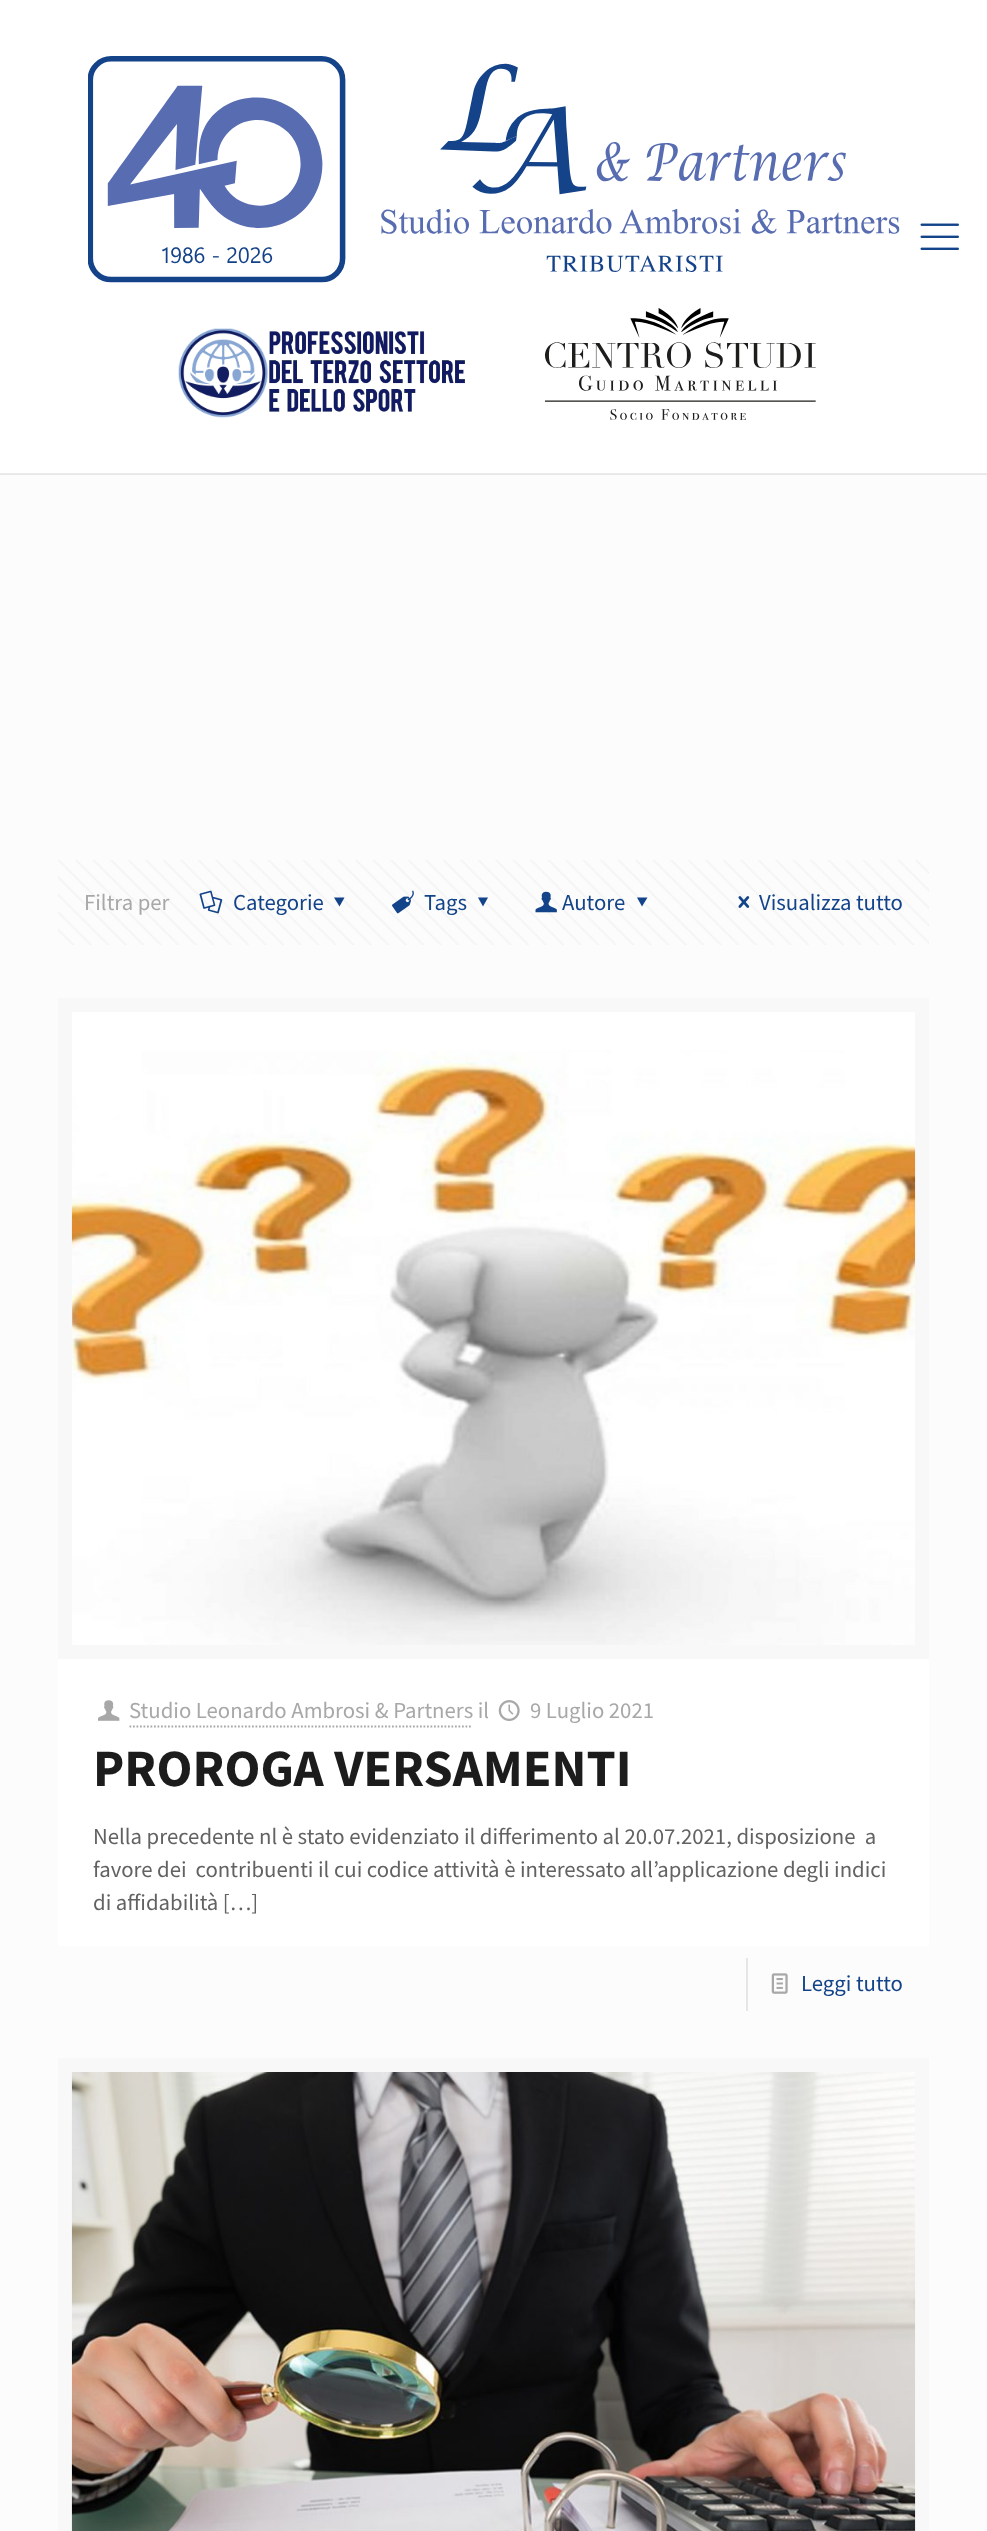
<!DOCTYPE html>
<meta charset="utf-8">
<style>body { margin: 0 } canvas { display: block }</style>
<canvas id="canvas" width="987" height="2531"></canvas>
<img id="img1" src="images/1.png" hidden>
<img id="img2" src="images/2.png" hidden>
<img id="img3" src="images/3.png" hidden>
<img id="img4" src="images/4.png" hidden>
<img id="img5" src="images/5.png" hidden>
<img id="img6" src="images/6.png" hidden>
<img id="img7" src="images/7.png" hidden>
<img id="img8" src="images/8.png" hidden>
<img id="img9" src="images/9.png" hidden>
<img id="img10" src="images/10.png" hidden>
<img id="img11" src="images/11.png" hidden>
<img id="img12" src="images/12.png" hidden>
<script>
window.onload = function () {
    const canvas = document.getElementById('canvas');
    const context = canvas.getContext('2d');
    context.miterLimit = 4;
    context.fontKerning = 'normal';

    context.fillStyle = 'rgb(252, 252, 252)';
    context.fillRect(0, 0, 987, 2531);
    context.fillStyle = 'rgb(232, 232, 232)';
    context.fillRect(0, 474, 987, 1);
    context.fillStyle = 'rgb(255, 255, 255)';
    context.fillRect(0, 0, 987, 473);
    context.fillStyle = 'rgb(235, 235, 235)';
    context.fillRect(0, 473, 987, 1);
    context.drawImage(document.getElementById('img1'), 88, 56, 812, 364);
    context.drawImage(document.getElementById('img2'), 920, 223, 39, 27);
    context.drawImage(document.getElementById('img3'), 58, 860, 871, 85);
    context.drawImage(document.getElementById('img4'), 199, 890, 24, 24);
    context.fillStyle = 'rgb(19, 68, 137)';
    context.beginPath();
    context.moveTo(344.5, 897.5);
    context.lineTo(339.5, 906.5);
    context.lineTo(334, 897.5);
    context.closePath();
    context.fill();
    context.drawImage(document.getElementById('img5'), 392, 890, 22, 24);
    context.beginPath();
    context.moveTo(488, 897.5);
    context.lineTo(483, 906.5);
    context.lineTo(478, 897.5);
    context.closePath();
    context.fill();
    context.drawImage(document.getElementById('img6'), 535, 891, 22, 22);
    context.beginPath();
    context.moveTo(647.5, 897.5);
    context.lineTo(642, 906.5);
    context.lineTo(637, 897.5);
    context.closePath();
    context.fill();
    context.drawImage(document.getElementById('img7'), 738, 896, 12, 12);
    context.fillStyle = 'rgb(255, 255, 255)';
    context.fillRect(58, 1012, 871, 934);
    context.strokeStyle = 'rgb(248, 248, 248)';
    context.lineWidth = 14;
    context.strokeRect(65, 1005, 857, 647);
    context.drawImage(document.getElementById('img8'), 71, 1050, 845, 595);
    context.drawImage(document.getElementById('img9'), 98, 1700, 22, 21);
    context.beginPath();
    context.moveTo(129.5, 1726.5);
    context.lineTo(472.5, 1726.5);
    context.strokeStyle = 'rgb(168, 168, 168)';
    context.lineWidth = 1.8;
    context.setLineDash([1.75, 1.75]);
    context.stroke();
    context.drawImage(document.getElementById('img10'), 498, 1700, 22, 21);
    context.fillStyle = 'rgb(230, 230, 230)';
    context.fillRect(746, 1958, 2, 53);
    context.drawImage(document.getElementById('img11'), 771, 1973, 17, 21);
    context.strokeStyle = 'rgb(248, 248, 248)';
    context.lineWidth = 14;
    context.setLineDash([]);
    context.strokeRect(65, 2065, 857, 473);
    context.drawImage(document.getElementById('img12'), 71, 2072, 845, 459);
    context.font = '22.75px Source Sans Pro';
    context.fillStyle = 'rgb(168, 168, 168)';
    context.fillText('Filtra per', 84, 910);
    context.fillStyle = 'rgb(19, 68, 137)';
    context.fillText('Categorie', 233, 910);
    context.fillText('Tags', 424, 910);
    context.fillText('Autore', 562, 910);
    context.fillText('Visualizza tutto', 759, 910);
    context.fillStyle = 'rgb(168, 168, 168)';
    context.fillText('Studio Leonardo Ambrosi & Partners il', 129, 1718);
    context.fillText('9 Luglio 2021', 530, 1718);
    context.font = 'bold 52.5px Source Sans Pro';
    context.fillStyle = 'rgb(28, 28, 28)';
    context.fillText('PROROGA VERSAMENTI', 93, 1786);
    context.font = '22.75px Source Sans Pro';
    context.fillStyle = 'rgb(98, 98, 98)';
    context.fillText('Nella precedente nl è stato evidenziato il differimento al 20.07.2021, disposizione  a', 93, 1844);
    context.fillText('favore dei  contribuenti il cui codice attività è interessato all’applicazione degli indici', 93, 1877);
    context.fillText('di affidabilità […]', 93, 1910);
    context.fillStyle = 'rgb(19, 68, 137)';
    context.fillText('Leggi tutto', 801, 1991);
};
</script>
